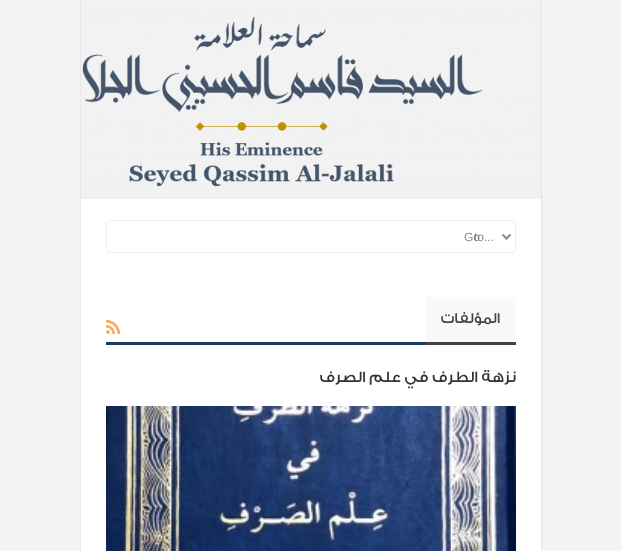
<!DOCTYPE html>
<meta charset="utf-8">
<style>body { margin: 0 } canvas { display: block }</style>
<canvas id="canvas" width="621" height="551"></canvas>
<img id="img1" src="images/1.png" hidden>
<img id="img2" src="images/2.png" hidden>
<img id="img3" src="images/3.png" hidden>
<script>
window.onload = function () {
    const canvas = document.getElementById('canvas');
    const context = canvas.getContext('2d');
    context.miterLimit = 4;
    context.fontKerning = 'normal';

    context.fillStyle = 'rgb(244, 244, 244)';
    context.fillRect(0, 0, 621, 551);
    context.fillStyle = 'rgba(0, 0, 0, 0.15)';
    context.filter = 'blur(1px)';
    context.beginPath();
    context.rect(81, 1, 460, 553);
    context.fill();
    context.filter = 'none';
    context.fillStyle = 'rgb(255, 255, 255)';
    context.fillRect(81, 199, 460, 352);
    context.drawImage(document.getElementById('img1'), 81, 0, 460, 199);
    context.beginPath();
    context.roundRect(106.5, 220.5, 409, 32, 2.5);
    context.strokeStyle = 'rgb(240, 240, 240)';
    context.stroke();
    context.beginPath();
    context.moveTo(502.5, 234.5);
    context.lineTo(506.5, 238.5);
    context.lineTo(510.5, 234.5);
    context.strokeStyle = 'rgb(129, 139, 146)';
    context.lineWidth = 2;
    context.stroke();
    context.fillStyle = 'rgb(32, 56, 100)';
    context.fillRect(106, 342, 320, 3);
    context.fillStyle = 'rgb(249, 249, 249)';
    context.fillRect(426, 297, 90, 45);
    context.fillStyle = 'rgb(68, 68, 68)';
    context.fillRect(426, 342, 90, 3);
    context.drawImage(document.getElementById('img2'), 106, 319, 15, 15);
    context.drawImage(document.getElementById('img3'), 106, 406, 410, 145);
    context.font = '12px Liberation Sans';
    context.fillStyle = 'rgb(129, 139, 146)';
    context.fillText('Go', 464, 241);
    context.fillText('to...', 474, 241);
    context.direction = 'rtl';
    context.font = '500 15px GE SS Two';
    context.fillStyle = 'rgb(68, 68, 68)';
    context.fillText('المؤلفات', 500, 323);
    context.font = '500 16px GE SS Two';
    context.fillStyle = 'rgb(52, 52, 52)';
    context.fillText('نزهة الطرف في علم الصرف', 516, 382);
};
</script>
